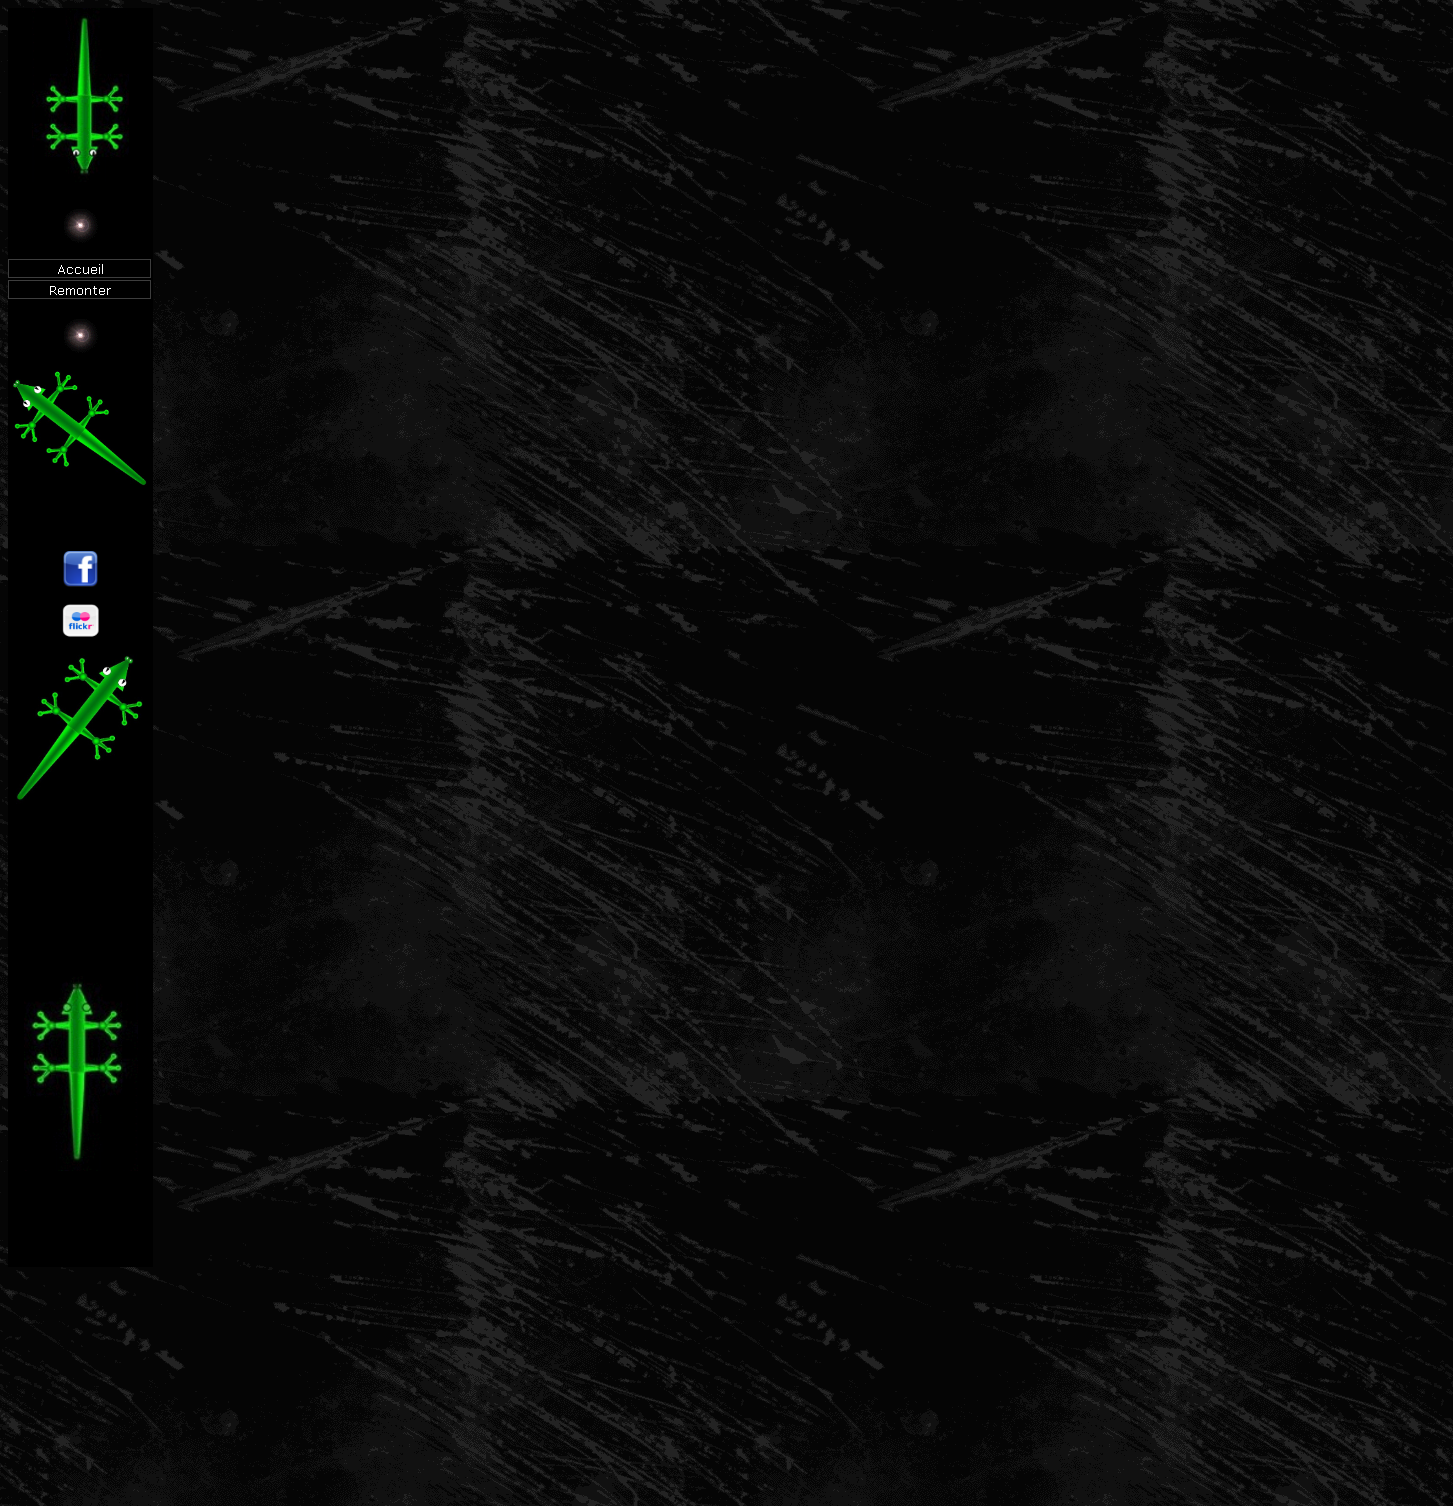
<!DOCTYPE html>
<meta charset="utf-8">
<style>body { margin: 0 } canvas { display: block }</style>
<canvas id="canvas" width="1453" height="1506"></canvas>
<img id="img1" src="images/1.png" hidden>
<img id="img2" src="images/2.png" hidden>
<img id="img3" src="images/3.png" hidden>
<img id="img4" src="images/4.png" hidden>
<img id="img5" src="images/5.png" hidden>
<img id="img6" src="images/6.png" hidden>
<img id="img7" src="images/7.png" hidden>
<img id="img8" src="images/8.png" hidden>
<img id="img9" src="images/9.png" hidden>
<img id="img10" src="images/10.png" hidden>
<script>
window.onload = function () {
    const canvas = document.getElementById('canvas');
    const context = canvas.getContext('2d');
    context.miterLimit = 4;
    context.fontKerning = 'normal';

    context.fillStyle = 'rgb(255, 255, 255)';
    context.fillRect(0, 0, 1453, 1506);
    context.drawImage(document.getElementById('img1'), 0, 0, 1453, 1506);
    context.fillStyle = 'rgb(0, 0, 0)';
    context.fillRect(8, 8, 145, 1259);
    context.drawImage(document.getElementById('img2'), 32, 8, 97, 174);
    context.drawImage(document.getElementById('img3'), 64, 209, 34, 34);
    context.drawImage(document.getElementById('img4'), 8, 259, 143, 19);
    context.drawImage(document.getElementById('img5'), 8, 280, 143, 19);
    context.drawImage(document.getElementById('img3'), 64, 319, 34, 34);
    context.drawImage(document.getElementById('img6'), 12, 370, 135, 116);
    context.drawImage(document.getElementById('img7'), 63, 551, 35, 36);
    context.drawImage(document.getElementById('img8'), 62, 604, 37, 33);
    context.drawImage(document.getElementById('img9'), 16, 654, 127, 150);
    context.drawImage(document.getElementById('img10'), 24, 976, 114, 195);
};
</script>
